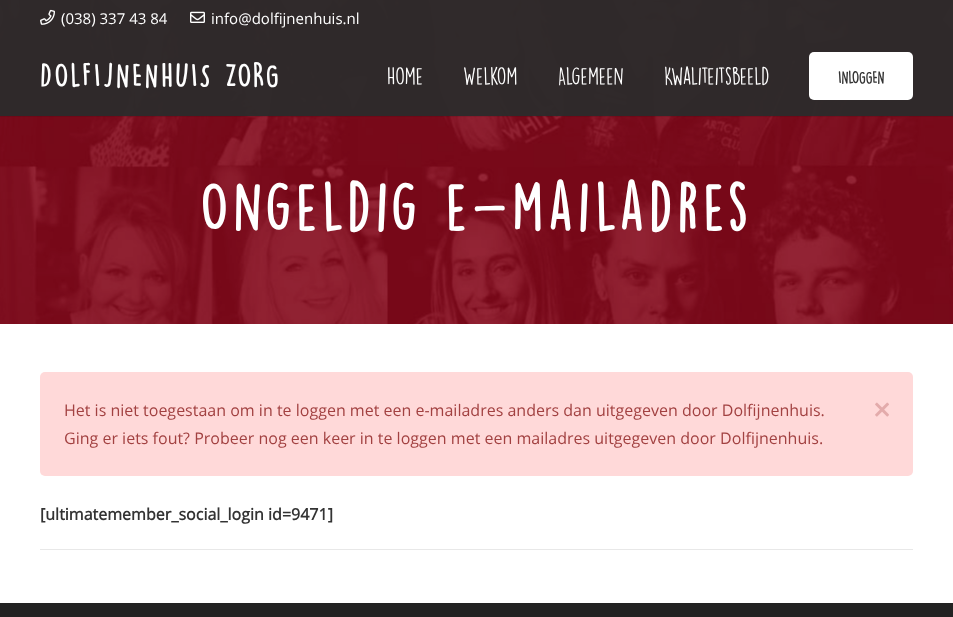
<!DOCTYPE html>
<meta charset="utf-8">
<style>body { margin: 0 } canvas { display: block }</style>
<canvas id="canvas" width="953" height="617"></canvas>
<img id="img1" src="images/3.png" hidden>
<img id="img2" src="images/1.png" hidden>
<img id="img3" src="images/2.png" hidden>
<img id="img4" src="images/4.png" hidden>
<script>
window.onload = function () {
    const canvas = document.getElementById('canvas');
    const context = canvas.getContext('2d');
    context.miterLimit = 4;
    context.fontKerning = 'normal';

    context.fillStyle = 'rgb(34, 34, 34)';
    context.fillRect(0, 0, 953, 617);
    context.fillStyle = 'rgb(255, 255, 255)';
    context.fillRect(0, 324, 953, 279);
    context.drawImage(document.getElementById('img1'), 0, 0, 953, 324);
    context.fillStyle = 'rgba(43, 43, 43, 0.95)';
    context.fillRect(0, 0, 953, 36);
    context.drawImage(document.getElementById('img2'), 40, 9, 15, 16);
    context.drawImage(document.getElementById('img3'), 190, 11, 15, 12);
    context.fillStyle = 'rgba(0, 0, 0, 0.08)';
    context.fillRect(0, 116, 953, 1);
    context.fillStyle = 'rgba(43, 43, 43, 0.95)';
    context.fillRect(0, 36, 953, 80);
    context.fillStyle = 'rgb(255, 255, 255)';
    context.beginPath();
    context.roundRect(809, 52, 104, 48, 5);
    context.fill();
    context.fillStyle = 'rgb(255, 217, 217)';
    context.beginPath();
    context.roundRect(40, 372, 873, 104, 5);
    context.fill();
    context.drawImage(document.getElementById('img4'), 875, 402, 14, 15);
    context.fillStyle = 'rgb(232, 232, 232)';
    context.fillRect(40, 549, 873, 1);
    context.font = '15px Open Sans';
    context.fillStyle = 'rgb(255, 255, 255)';
    context.fillText('(038) 337 43 84', 61, 24);
    context.fillText('info@dolfijnenhuis.nl', 211, 24);
    context.letterSpacing = '3px';
    context.font = 'bold 30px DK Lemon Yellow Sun';
    context.fillText('DOLFIJNENHUIS ZORG', 40, 88);
    context.letterSpacing = '0px';
    context.font = '22px DK Lemon Yellow Sun';
    context.fillText('Home', 387, 85);
    context.fillText('Welkom', 463, 85);
    context.fillText('Algemeen', 558, 85);
    context.fillText('Kwaliteitsbeeld', 664, 85);
    context.font = 'bold 16px DK Lemon Yellow Sun';
    context.fillStyle = 'rgb(51, 51, 51)';
    context.fillText('INLOGGEN', 838, 84);
    context.letterSpacing = '6px';
    context.font = 'bold 60px DK Lemon Yellow Sun';
    context.fillStyle = 'rgb(255, 255, 255)';
    context.fillText('Ongeldig e-mailadres', 200, 232);
    context.letterSpacing = '0px';
    context.font = '16px Open Sans';
    context.fillStyle = 'rgb(162, 65, 65)';
    context.fillText('Het is niet toegestaan om in te loggen met een e-mailadres anders dan uitgegeven door Dolfijnenhuis.', 64, 416);
    context.fillText('Ging er iets fout? Probeer nog een keer in te loggen met een mailadres uitgegeven door Dolfijnenhuis.', 64, 444);
    context.font = 'bold 16px Open Sans';
    context.fillStyle = 'rgb(51, 51, 51)';
    context.fillText('[ultimatemember_social_login id=9471]', 40, 520);
};
</script>
